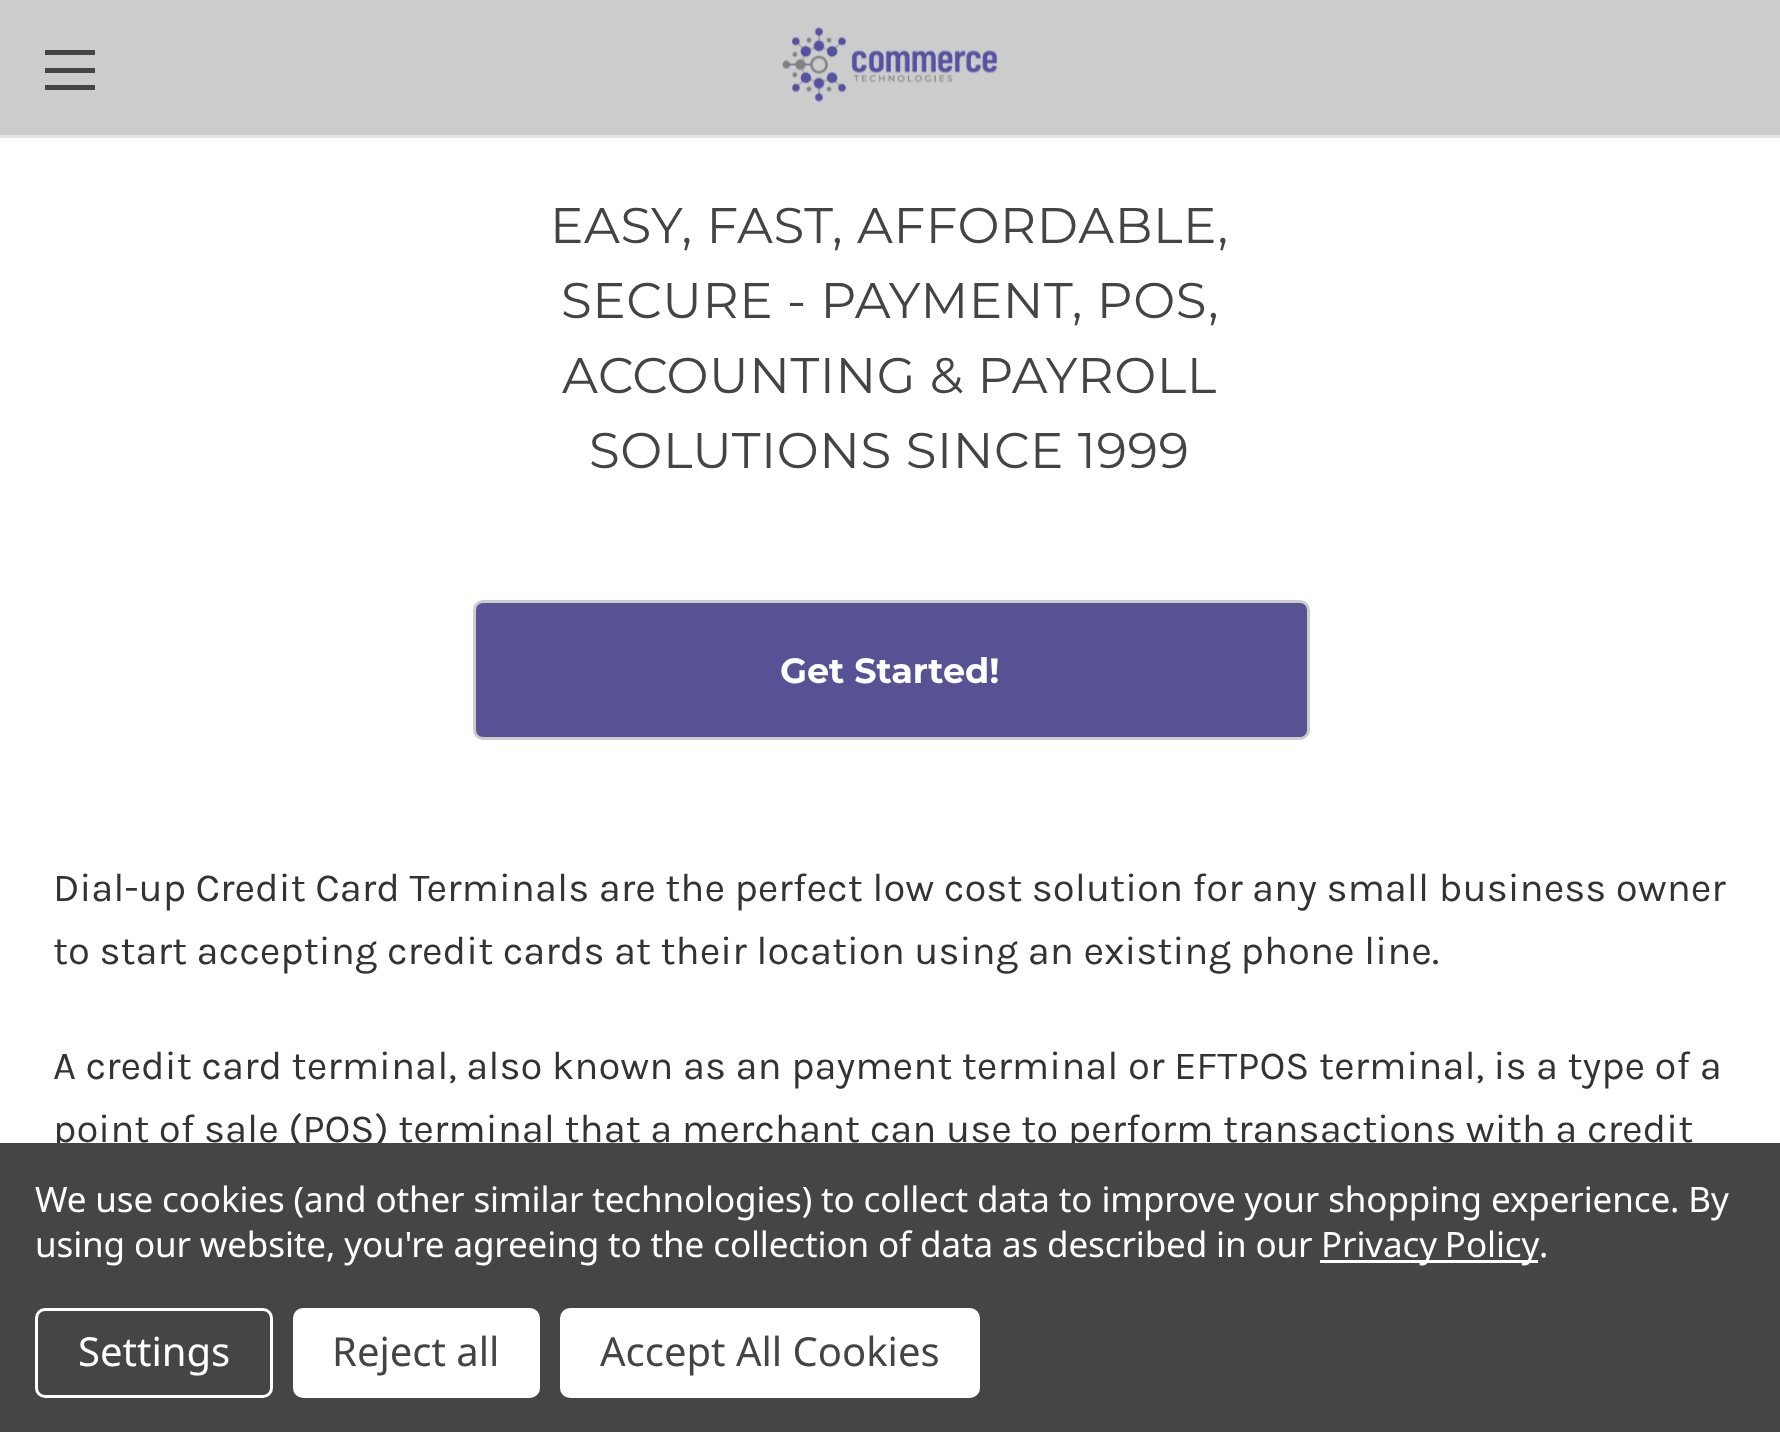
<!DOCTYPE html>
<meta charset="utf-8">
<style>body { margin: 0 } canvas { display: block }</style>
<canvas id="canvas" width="1780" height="1432"></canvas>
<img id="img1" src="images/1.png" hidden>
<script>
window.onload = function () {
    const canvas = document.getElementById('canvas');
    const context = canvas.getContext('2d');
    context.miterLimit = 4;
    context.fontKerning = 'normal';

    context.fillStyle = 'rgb(255, 255, 255)';
    context.fillRect(0, 0, 1780, 1432);
    context.fillStyle = 'rgb(204, 204, 204)';
    context.fillRect(0, 0, 1780, 135);
    context.fillStyle = 'rgb(229, 229, 229)';
    context.fillRect(0, 135, 1780, 3);
    context.fillStyle = 'rgb(68, 68, 68)';
    context.fillRect(45, 68, 50, 5);
    context.fillRect(45, 50, 50, 5);
    context.fillRect(45, 85, 50, 5);
    context.drawImage(document.getElementById('img1'), 782, 27, 216, 76);
    context.fillStyle = 'rgb(86, 82, 148)';
    context.beginPath();
    context.roundRect(474.5, 601.5, 834, 137, 8.5);
    context.fill();
    context.strokeStyle = 'rgb(204, 204, 204)';
    context.lineWidth = 3;
    context.stroke();
    context.letterSpacing = '0.6px';
    context.font = '50px Montserrat';
    context.fillStyle = 'rgb(68, 68, 68)';
    context.fillText('EASY, FAST, AFFORDABLE,', 550, 243);
    context.fillText('SECURE - PAYMENT, POS,', 561, 318);
    context.fillText('ACCOUNTING & PAYROLL', 562, 393);
    context.fillText('SOLUTIONS SINCE 1999', 589, 468);
    context.letterSpacing = '0px';
    context.font = 'bold 35px Montserrat';
    context.fillStyle = 'rgb(255, 255, 255)';
    context.fillText('Get Started!', 780, 683);
    context.font = '40px Karla';
    context.fillStyle = 'rgb(51, 51, 51)';
    context.fillText('Dial-up Credit Card Terminals are the perfect low cost solution for any small business owner', 53, 901);
    context.fillText('to start accepting credit cards at their location using an existing phone line.', 53, 964);
    context.fillText('A credit card terminal, also known as an payment terminal or EFTPOS terminal, is a type of a', 53, 1079);
    context.fillText('point of sale (POS) terminal that a merchant can use to perform transactions with a credit', 53, 1142);
    context.fillStyle = 'rgb(69, 69, 69)';
    context.fillRect(0, 1143, 1780, 289);
    context.letterSpacing = '-0.12px';
    context.font = '35px Noto Sans';
    context.fillStyle = 'rgb(255, 255, 255)';
    context.fillText('We use cookies (and other similar technologies) to collect data to improve your shopping experience. By', 35, 1212);
    context.fillText('using our website, you\'re agreeing to the collection of data as described in our', 35, 1257);
    context.fillText('.', 1539, 1257);
    context.fillRect(1320, 1260, 218, 3);
    context.wordSpacing = '-1px';
    context.fillText('Privacy Policy', 1321, 1257);
    context.beginPath();
    context.roundRect(36.5, 1309.5, 235, 87, 8.5);
    context.strokeStyle = 'rgb(255, 255, 255)';
    context.stroke();
    context.letterSpacing = '0px';
    context.wordSpacing = '0px';
    context.font = '40px Noto Sans';
    context.fillText('Settings', 78, 1366);
    context.beginPath();
    context.roundRect(293, 1308, 247, 90, 10);
    context.fill();
    context.fillStyle = 'rgb(68, 68, 68)';
    context.fillText('Reject all', 332, 1366);
    context.fillStyle = 'rgb(255, 255, 255)';
    context.beginPath();
    context.roundRect(560, 1308, 420, 90, 10);
    context.fill();
    context.fillStyle = 'rgb(68, 68, 68)';
    context.fillText('Accept All Cookies', 600, 1366);
};
</script>
